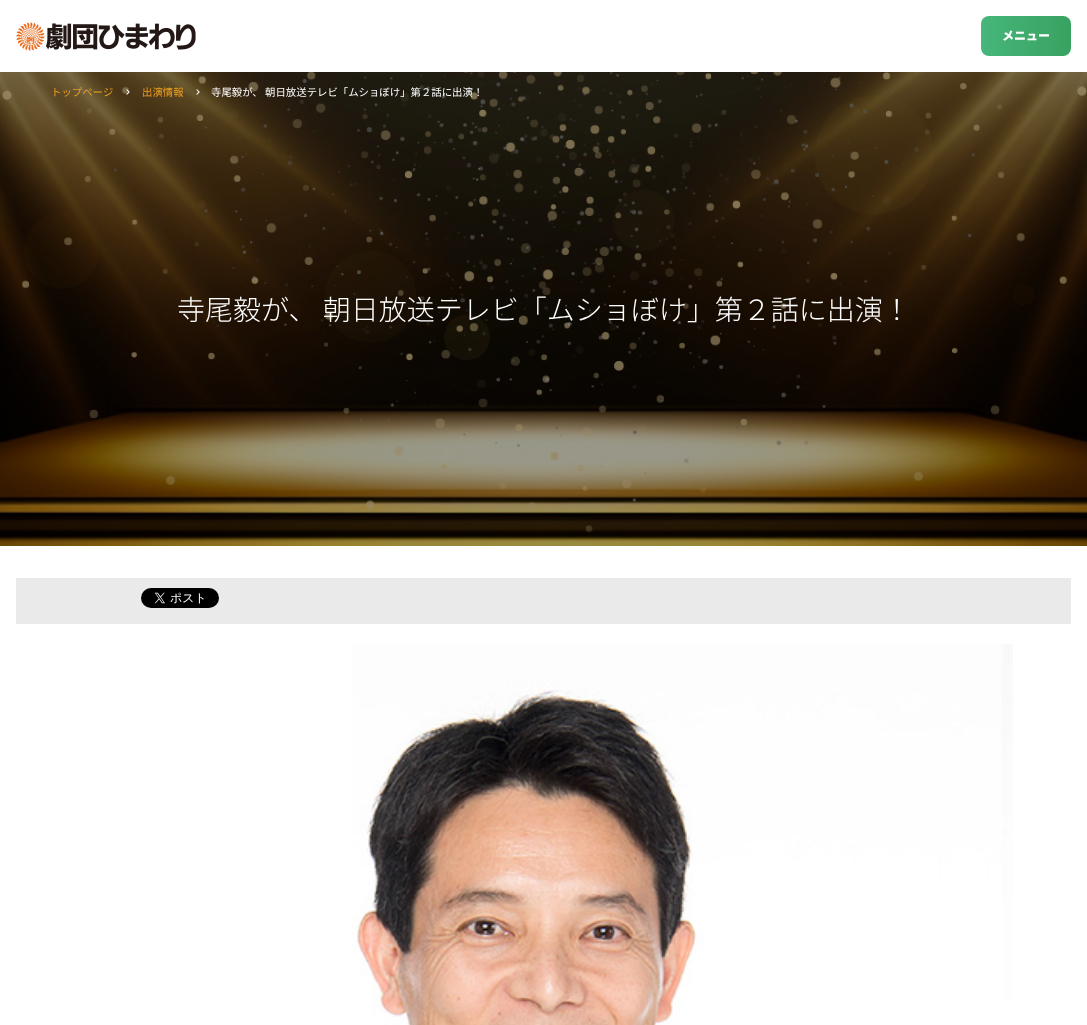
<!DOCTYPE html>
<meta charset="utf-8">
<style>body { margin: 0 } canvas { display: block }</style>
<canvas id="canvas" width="1087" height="1025"></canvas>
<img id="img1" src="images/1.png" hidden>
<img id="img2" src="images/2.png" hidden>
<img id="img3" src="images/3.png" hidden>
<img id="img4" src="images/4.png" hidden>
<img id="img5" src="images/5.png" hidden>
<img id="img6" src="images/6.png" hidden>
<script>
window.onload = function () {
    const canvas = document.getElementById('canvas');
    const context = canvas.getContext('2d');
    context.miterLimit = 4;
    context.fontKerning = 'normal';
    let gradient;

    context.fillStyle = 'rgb(255, 255, 255)';
    context.fillRect(0, 0, 1087, 1025);
    context.drawImage(document.getElementById('img1'), 16, 22, 180, 29);
    gradient = context.createLinearGradient(981, 36, 1071, 36);
    gradient.addColorStop(0, 'rgb(71, 182, 122)');
    gradient.addColorStop(1, 'rgb(56, 162, 96)');
    context.fillStyle = gradient;
    context.beginPath();
    context.roundRect(981, 16, 90, 40, 8);
    context.fill();
    context.drawImage(document.getElementById('img2'), 0, 72, 1087, 474);
    context.drawImage(document.getElementById('img3'), 126, 89, 4, 6);
    context.drawImage(document.getElementById('img4'), 196, 89, 4, 6);
    context.fillStyle = 'rgb(234, 234, 234)';
    context.fillRect(16, 578, 1055, 46);
    context.drawImage(document.getElementById('img5'), 141, 588, 78, 20);
    context.drawImage(document.getElementById('img6'), 352, 644, 661, 381);
    context.font = '900 12px Noto Sans JP';
    context.fillStyle = 'rgb(255, 255, 255)';
    context.fillText('メニュー', 1002, 40);
    context.font = '10.4px Noto Sans JP';
    context.fillStyle = 'rgb(238, 159, 33)';
    context.fillText('トップページ', 51, 96);
    context.fillText('出演情報', 142, 96);
    context.fillStyle = 'rgb(255, 255, 255)';
    context.fillText('寺尾毅が、 朝日放送テレビ「ムショぼけ」第２話に出演！', 211, 96);
    context.font = '300 28px Noto Sans JP';
    context.fillText('寺尾毅が、 朝日放送テレビ「ムショぼけ」第２話に出演！', 177, 320);
};
</script>
